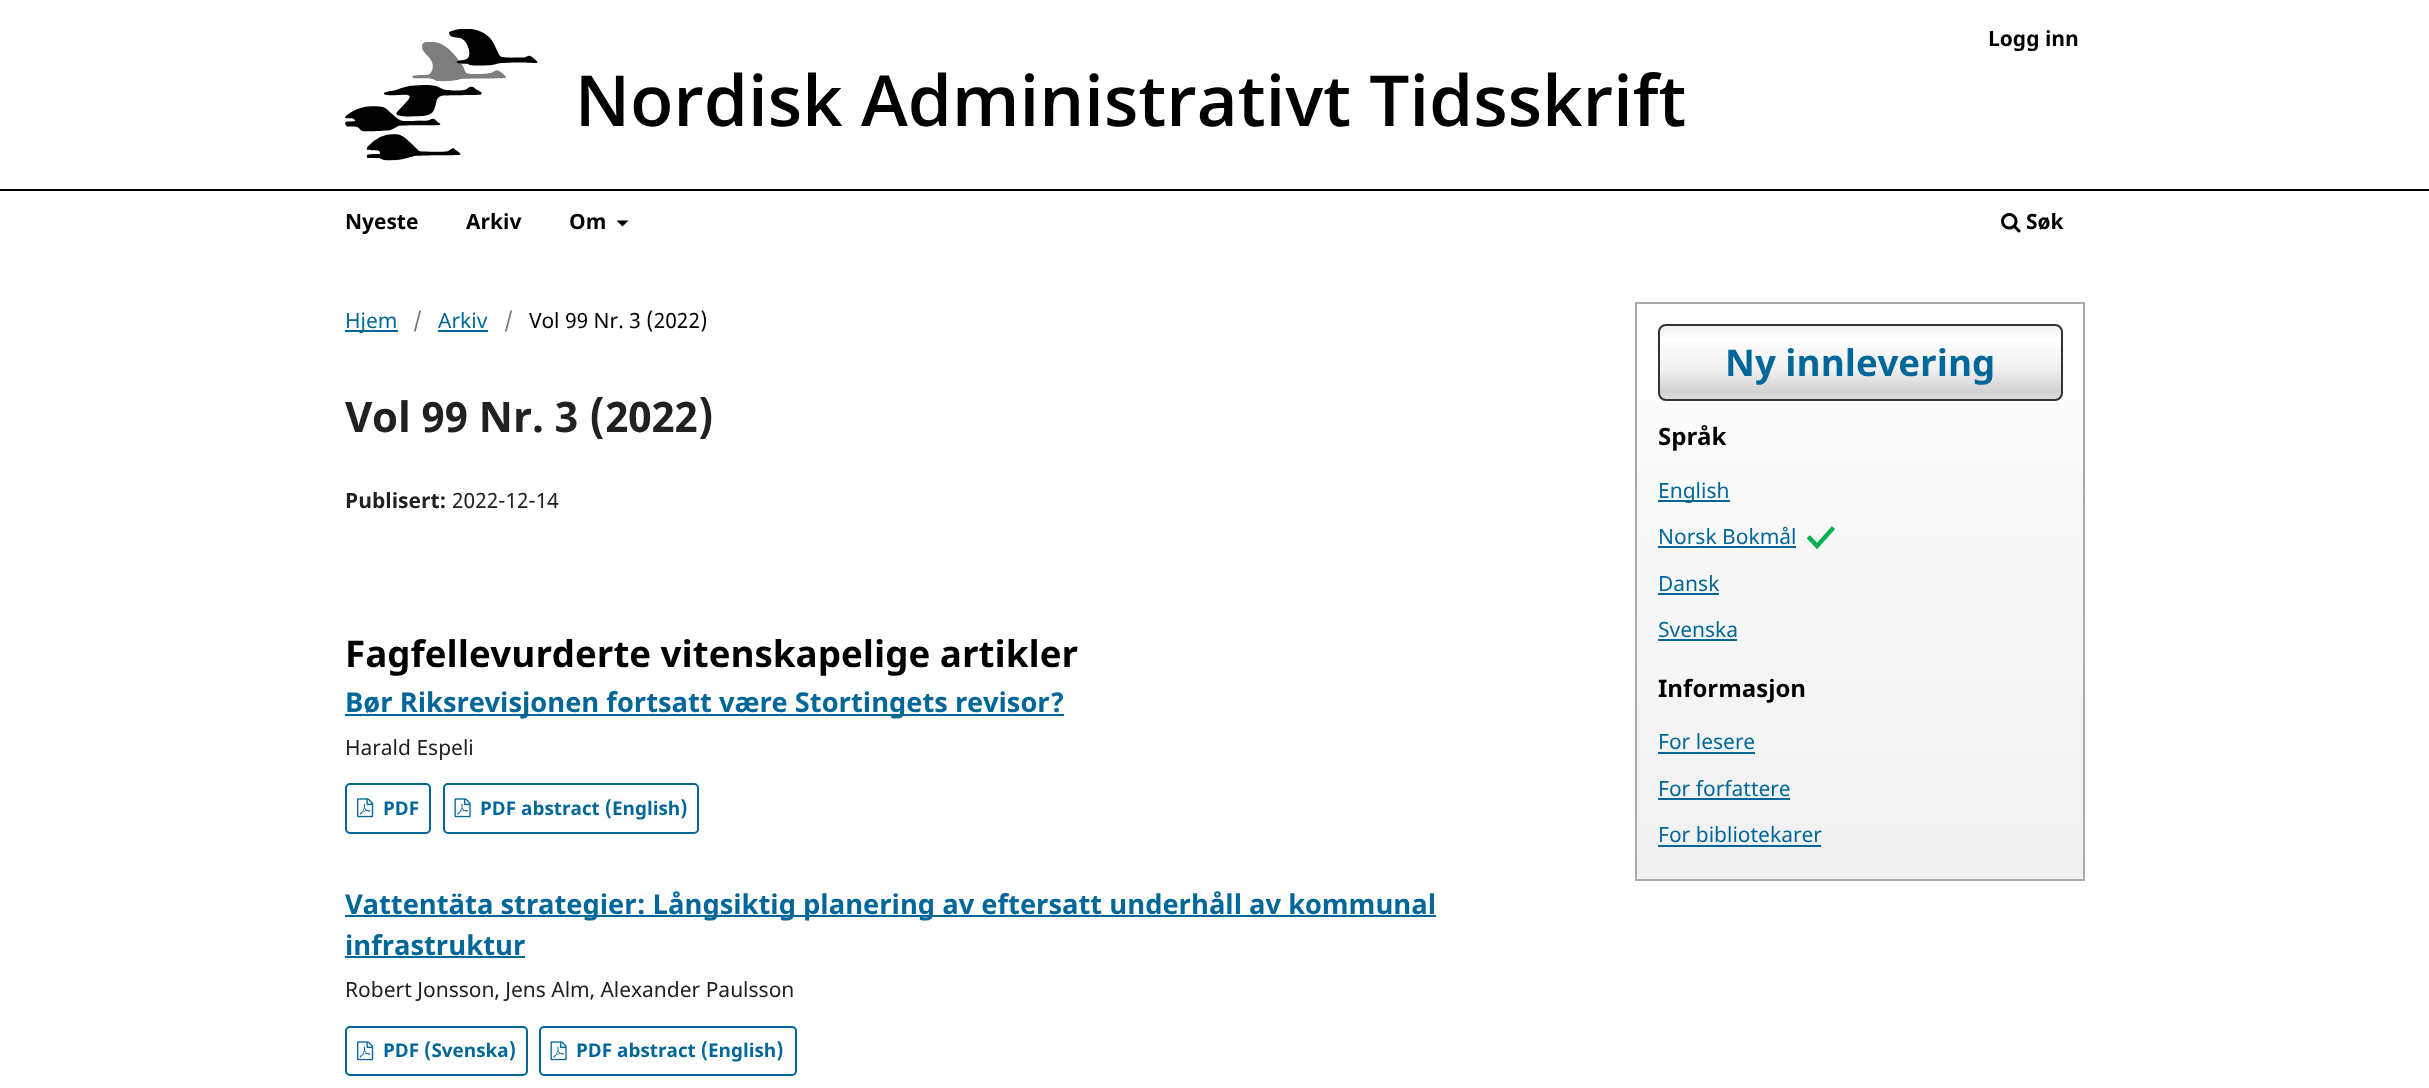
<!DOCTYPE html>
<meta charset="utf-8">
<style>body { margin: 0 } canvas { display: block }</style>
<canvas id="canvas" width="2429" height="1088"></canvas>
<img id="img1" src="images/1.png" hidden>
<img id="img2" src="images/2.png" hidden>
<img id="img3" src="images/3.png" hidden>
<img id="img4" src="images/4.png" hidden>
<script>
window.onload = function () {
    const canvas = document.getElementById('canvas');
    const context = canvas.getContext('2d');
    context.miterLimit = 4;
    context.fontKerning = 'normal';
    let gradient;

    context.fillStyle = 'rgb(255, 255, 255)';
    context.fillRect(0, 0, 2429, 1088);
    context.drawImage(document.getElementById('img1'), 345, 29, 1340, 132);
    context.fillStyle = 'rgb(0, 0, 0)';
    context.fillRect(0, 189, 2429, 2);
    context.beginPath();
    context.moveTo(616.5, 220.5);
    context.lineTo(628.5, 220.5);
    context.lineTo(622.5, 226.5);
    context.closePath();
    context.fill();
    context.drawImage(document.getElementById('img2'), 2001, 213, 20, 20);
    context.fillStyle = 'rgb(0, 103, 152)';
    context.fillRect(345, 330, 53, 2);
    context.fillRect(438, 330, 50, 2);
    context.fillRect(345, 714, 719, 2);
    context.beginPath();
    context.roundRect(346, 784, 84, 49, 4);
    context.strokeStyle = 'rgb(0, 103, 152)';
    context.lineWidth = 2;
    context.stroke();
    context.drawImage(document.getElementById('img3'), 357, 798, 17, 20);
    context.beginPath();
    context.roundRect(444, 784, 254, 49, 4);
    context.stroke();
    context.drawImage(document.getElementById('img4'), 454, 798, 17, 20);
    context.fillRect(345, 915, 1091, 2);
    context.fillRect(345, 956, 180, 2);
    context.beginPath();
    context.roundRect(346, 1027, 181, 48, 4);
    context.stroke();
    context.drawImage(document.getElementById('img3'), 357, 1041, 17, 20);
    context.beginPath();
    context.roundRect(540, 1027, 256, 48, 4);
    context.stroke();
    context.drawImage(document.getElementById('img4'), 550, 1041, 17, 20);
    gradient = context.createLinearGradient(1860, 303, 1860, 879);
    gradient.addColorStop(0, 'rgb(255, 255, 255)');
    gradient.addColorStop(1, 'rgb(240, 240, 240)');
    context.fillStyle = gradient;
    context.fillRect(1637, 399, 446, 480);
    context.strokeStyle = 'rgb(170, 170, 170)';
    context.strokeRect(1636, 303, 448, 577);
    context.save();
    context.beginPath();
    context.roundRect(1658, 324, 405, 77, 8);
    context.clip();
    gradient = context.createLinearGradient(1860, 325, 1860, 399);
    gradient.addColorStop(0, 'rgb(240, 240, 240)');
    gradient.addColorStop(0.2, 'rgb(255, 255, 255)');
    gradient.addColorStop(0.6, 'rgb(240, 240, 240)');
    gradient.addColorStop(0.9, 'rgb(210, 210, 210)');
    gradient.addColorStop(1, 'rgb(220, 220, 220)');
    context.fillStyle = gradient;
    context.fillRect(1658, 326, 405, 73);
    context.restore();
    context.beginPath();
    context.roundRect(1659, 325, 403, 75, 7);
    context.strokeStyle = 'rgb(51, 51, 51)';
    context.stroke();
    context.fillStyle = 'rgb(0, 103, 152)';
    context.fillRect(1658, 500, 72, 2);
    context.fillRect(1658, 546, 138, 2);
    context.fillRect(1658, 593, 61, 2);
    context.fillRect(1658, 639, 79, 2);
    context.fillRect(1658, 752, 97, 2);
    context.fillRect(1658, 798, 132, 2);
    context.fillRect(1658, 845, 163, 2);
    context.font = 'bold 21px Noto Sans';
    context.fillStyle = 'rgb(0, 0, 0)';
    context.fillText('Logg inn', 1988, 46);
    context.fillText('Nyeste', 345, 229);
    context.fillText('Arkiv', 466, 229);
    context.fillText('Om', 569, 229);
    context.fillText('Søk', 2026, 229);
    context.font = '21px Noto Sans';
    context.fillStyle = 'rgb(0, 103, 152)';
    context.fillText('Hjem', 345, 328);
    context.fillStyle = 'rgb(117, 117, 117)';
    context.fillText('/', 413, 328);
    context.fillStyle = 'rgb(0, 103, 152)';
    context.fillText('Arkiv', 438, 328);
    context.fillStyle = 'rgb(117, 117, 117)';
    context.fillText('/', 504, 328);
    context.fillStyle = 'rgb(0, 0, 0)';
    context.fillText('Vol 99 Nr. 3 (2022)', 529, 328);
    context.font = 'bold 42px Noto Sans';
    context.fillStyle = 'rgb(33, 33, 33)';
    context.fillText('Vol 99 Nr. 3 (2022)', 345, 432);
    context.font = 'bold 21px Noto Sans';
    context.fillText('Publisert:', 345, 508);
    context.font = '21px Noto Sans';
    context.fillText('2022-12-14', 452, 508);
    context.font = 'bold 36.75px Noto Sans';
    context.fillStyle = 'rgb(0, 0, 0)';
    context.fillText('Fagfellevurderte vitenskapelige artikler', 345, 667);
    context.font = 'bold 27.3px Noto Sans';
    context.fillStyle = 'rgb(0, 103, 152)';
    context.fillText('Bør Riksrevisjonen fortsatt være Stortingets revisor?', 345, 712);
    context.font = '21px Noto Sans';
    context.fillStyle = 'rgb(33, 33, 33)';
    context.fillText('Harald Espeli', 345, 755);
    context.font = 'bold 18.9px Noto Sans';
    context.fillStyle = 'rgb(0, 103, 152)';
    context.fillText('PDF', 383, 815);
    context.fillText('PDF abstract (English)', 480, 815);
    context.font = 'bold 27.3px Noto Sans';
    context.fillText('Vattentäta strategier: Långsiktig planering av eftersatt underhåll av kommunal', 345, 914);
    context.fillText('infrastruktur', 345, 955);
    context.font = '21px Noto Sans';
    context.fillStyle = 'rgb(33, 33, 33)';
    context.fillText('Robert Jonsson, Jens Alm, Alexander Paulsson', 345, 997);
    context.font = 'bold 18.9px Noto Sans';
    context.fillStyle = 'rgb(0, 103, 152)';
    context.fillText('PDF (Svenska)', 383, 1057);
    context.fillText('PDF abstract (English)', 576, 1057);
    context.font = 'bold 36.75px Noto Sans';
    context.fillText('Ny innlevering', 1725, 376);
    context.font = 'bold 24px Noto Sans';
    context.fillStyle = 'rgb(0, 0, 0)';
    context.fillText('Språk', 1658, 445);
    context.font = '21px Noto Sans';
    context.fillStyle = 'rgb(0, 103, 152)';
    context.fillText('English', 1658, 498);
    context.fillText('Norsk Bokmål', 1658, 544);
    context.font = 'bold 42px Ubuntu';
    context.fillStyle = 'rgb(0, 178, 78)';
    context.fillText('✓', 1806, 552);
    context.font = '21px Noto Sans';
    context.fillStyle = 'rgb(0, 103, 152)';
    context.fillText('Dansk', 1658, 591);
    context.fillText('Svenska', 1658, 637);
    context.font = 'bold 24px Noto Sans';
    context.fillStyle = 'rgb(0, 0, 0)';
    context.fillText('Informasjon', 1658, 697);
    context.font = '21px Noto Sans';
    context.fillStyle = 'rgb(0, 103, 152)';
    context.fillText('For lesere', 1658, 749);
    context.fillText('For forfattere', 1658, 796);
    context.fillText('For bibliotekarer', 1658, 842);
};
</script>
